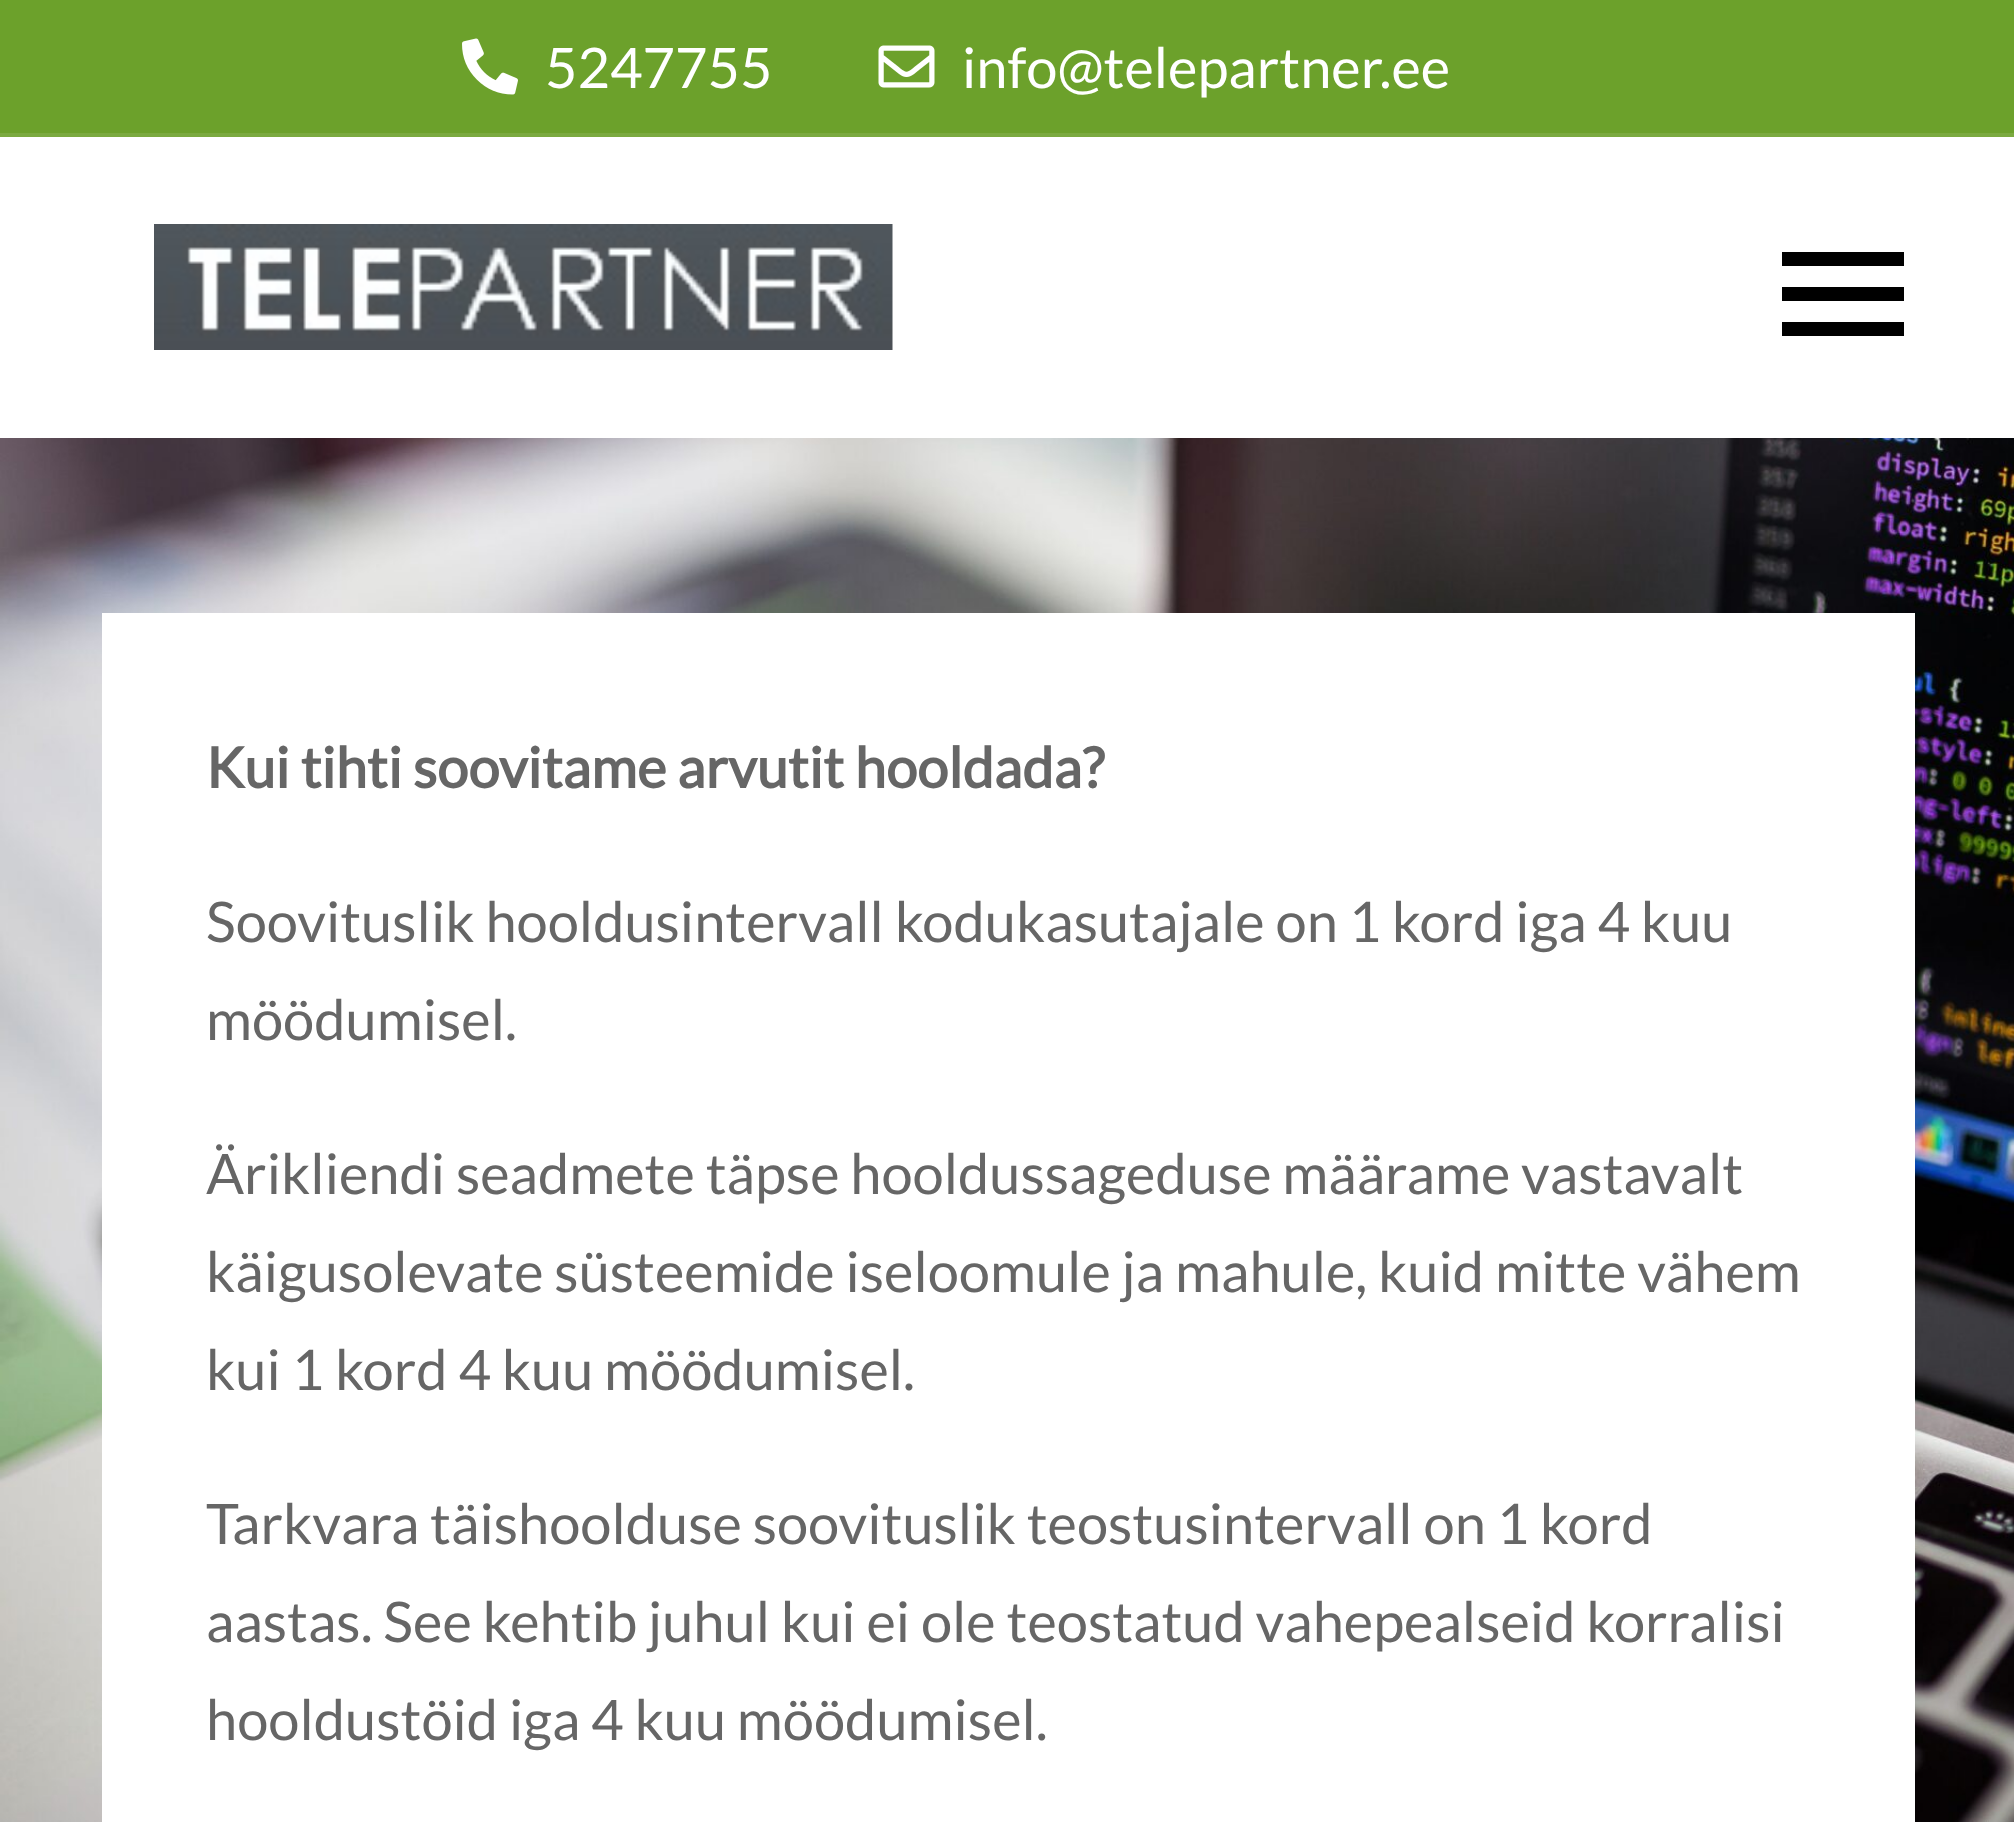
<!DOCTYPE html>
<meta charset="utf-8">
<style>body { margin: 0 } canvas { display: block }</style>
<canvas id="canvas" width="2014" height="1822"></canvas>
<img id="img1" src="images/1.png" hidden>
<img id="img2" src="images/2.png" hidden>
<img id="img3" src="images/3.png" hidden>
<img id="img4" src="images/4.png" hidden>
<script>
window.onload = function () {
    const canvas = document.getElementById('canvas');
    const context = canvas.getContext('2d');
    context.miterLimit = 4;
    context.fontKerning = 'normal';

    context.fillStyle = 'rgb(255, 255, 255)';
    context.fillRect(0, 0, 2014, 1822);
    context.drawImage(document.getElementById('img1'), 0, 438, 2014, 1384);
    context.fillStyle = 'rgb(108, 161, 43)';
    context.fillRect(0, 0, 2014, 133);
    context.fillStyle = 'rgb(123, 170, 64)';
    context.fillRect(0, 133, 2014, 4);
    context.drawImage(document.getElementById('img2'), 462, 38, 56, 57);
    context.drawImage(document.getElementById('img3'), 878, 45, 57, 43);
    context.drawImage(document.getElementById('img4'), 154, 224, 739, 126);
    context.fillStyle = 'rgb(0, 0, 0)';
    context.fillRect(1782, 287, 122, 14);
    context.fillRect(1782, 252, 122, 14);
    context.fillRect(1782, 322, 122, 14);
    context.fillStyle = 'rgb(255, 255, 255)';
    context.fillRect(102, 613, 1813, 1209);
    context.font = '56px Lato';
    context.fillText('5247755', 545, 88);
    context.fillText('info@telepartner.ee', 962, 88);
    context.font = 'bold 56px Lato';
    context.fillStyle = 'rgb(102, 102, 102)';
    context.fillText('Kui tihti soovitame arvutit hooldada?', 206, 788);
    context.font = '56px Lato';
    context.fillText('Soovituslik hooldusintervall kodukasutajale on 1 kord iga 4 kuu', 206, 942);
    context.fillText('möödumisel.', 206, 1040);
    context.fillText('Ärikliendi seadmete täpse hooldussageduse määrame vastavalt', 206, 1194);
    context.fillText('käigusolevate süsteemide iseloomule ja mahule, kuid mitte vähem', 206, 1292);
    context.fillText('kui 1 kord 4 kuu möödumisel.', 206, 1390);
    context.fillText('Tarkvara täishoolduse soovituslik teostusintervall on 1 kord', 206, 1544);
    context.fillText('aastas. See kehtib juhul kui ei ole teostatud vahepealseid korralisi', 206, 1642);
    context.fillText('hooldustöid iga 4 kuu möödumisel.', 206, 1740);
};
</script>
